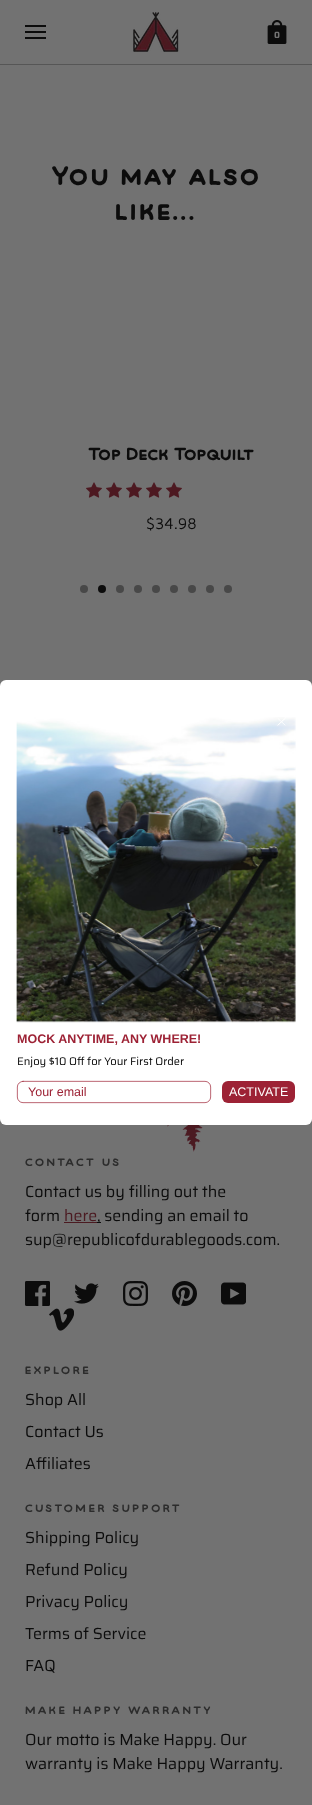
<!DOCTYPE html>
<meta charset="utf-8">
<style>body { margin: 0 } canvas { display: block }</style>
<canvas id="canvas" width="312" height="1805"></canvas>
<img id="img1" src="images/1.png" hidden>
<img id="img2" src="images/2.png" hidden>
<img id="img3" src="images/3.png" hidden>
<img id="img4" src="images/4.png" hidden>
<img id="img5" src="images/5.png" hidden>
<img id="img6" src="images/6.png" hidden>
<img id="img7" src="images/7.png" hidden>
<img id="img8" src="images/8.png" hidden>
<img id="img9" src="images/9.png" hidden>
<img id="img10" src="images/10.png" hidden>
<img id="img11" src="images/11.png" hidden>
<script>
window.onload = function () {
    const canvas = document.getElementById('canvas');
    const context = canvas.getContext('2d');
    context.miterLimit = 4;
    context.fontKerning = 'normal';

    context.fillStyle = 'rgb(114, 114, 114)';
    context.fillRect(0, 0, 312, 1805);
    context.fillStyle = 'rgb(86, 86, 86)';
    context.fillRect(0, 64, 312, 1);
    context.fillStyle = 'rgb(12, 12, 12)';
    context.fillRect(25, 25, 21, 2);
    context.fillRect(25, 31, 21, 2);
    context.fillRect(25, 37, 21, 2);
    context.drawImage(document.getElementById('img1'), 133, 12, 46, 40);
    context.drawImage(document.getElementById('img2'), 267, 20, 20, 24);
    context.drawImage(document.getElementById('img3'), 86, 482, 16, 16);
    context.drawImage(document.getElementById('img3'), 106, 482, 16, 16);
    context.drawImage(document.getElementById('img3'), 126, 482, 16, 16);
    context.drawImage(document.getElementById('img3'), 146, 482, 16, 16);
    context.drawImage(document.getElementById('img3'), 166, 482, 16, 16);
    context.fillStyle = 'rgb(72, 72, 72)';
    context.beginPath();
    context.arc(84, 589, 4, 0, 2 * Math.PI);
    context.fill();
    context.fillStyle = 'rgb(12, 12, 12)';
    context.beginPath();
    context.arc(102, 589, 4, 0, 2 * Math.PI);
    context.fill();
    context.fillStyle = 'rgb(72, 72, 72)';
    context.beginPath();
    context.arc(120, 589, 4, 0, 2 * Math.PI);
    context.fill();
    context.beginPath();
    context.arc(138, 589, 4, 0, 2 * Math.PI);
    context.fill();
    context.beginPath();
    context.arc(156, 589, 4, 0, 2 * Math.PI);
    context.fill();
    context.beginPath();
    context.arc(174, 589, 4, 0, 2 * Math.PI);
    context.fill();
    context.beginPath();
    context.arc(192, 589, 4, 0, 2 * Math.PI);
    context.fill();
    context.beginPath();
    context.arc(210, 589, 4, 0, 2 * Math.PI);
    context.fill();
    context.beginPath();
    context.arc(228, 589, 4, 0, 2 * Math.PI);
    context.fill();
    context.drawImage(document.getElementById('img4'), 0, 1119, 312, 33);
    context.fillStyle = 'rgb(75, 26, 33)';
    context.fillRect(64, 1222, 33, 1);
    context.fillStyle = 'rgb(12, 12, 12)';
    context.fillRect(97, 1222, 4, 1);
    context.drawImage(document.getElementById('img5'), 25, 1281, 25, 25);
    context.drawImage(document.getElementById('img6'), 74, 1283, 25, 21);
    context.drawImage(document.getElementById('img7'), 123, 1281, 25, 25);
    context.drawImage(document.getElementById('img8'), 172, 1281, 25, 25);
    context.drawImage(document.getElementById('img9'), 221, 1282, 25, 23);
    context.drawImage(document.getElementById('img10'), 49, 1308, 25, 23);
    context.fillStyle = 'rgb(255, 255, 255)';
    context.beginPath();
    context.roundRect(0, 680, 312, 445, 6);
    context.fill();
    context.drawImage(document.getElementById('img11'), 16, 717, 280, 306);
    context.beginPath();
    context.moveTo(278, 718.5);
    context.lineTo(285, 725);
    context.moveTo(278, 725);
    context.lineTo(285, 718.5);
    context.closePath();
    context.strokeStyle = 'rgb(255, 255, 255)';
    context.lineWidth = 0.8;
    context.lineCap = 'round';
    context.lineJoin = 'round';
    context.stroke();
    context.beginPath();
    context.roundRect(17.35, 1081.35, 193.3, 21.3, 5.65);
    context.strokeStyle = 'rgb(157, 34, 53)';
    context.lineWidth = 0.7;
    context.lineJoin = 'miter';
    context.stroke();
    context.fillStyle = 'rgb(157, 34, 53)';
    context.beginPath();
    context.roundRect(222, 1081, 73, 22, 6);
    context.fill();
    context.font = 'bold 9px Saira';
    context.fillStyle = 'rgb(114, 114, 114)';
    context.fillText('0', 274, 38);
    context.letterSpacing = '2px';
    context.font = 'bold 26.75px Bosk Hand';
    context.fillStyle = 'rgb(12, 12, 12)';
    context.fillText('You may also', 51, 185);
    context.fillText('like...', 115, 220);
    context.letterSpacing = '0px';
    context.font = 'bold 17.5px Bosk Hand';
    context.fillText('Top Deck Topquilt', 88, 460);
    context.font = '16px Maven Pro';
    context.fillText('$34.98', 146, 529);
    context.letterSpacing = '2.4px';
    context.font = 'bold 10.7px Bosk Hand';
    context.fillStyle = 'rgb(44, 44, 44)';
    context.fillText('CONTACT US', 25, 1166);
    context.letterSpacing = '0px';
    context.font = '16px Saira';
    context.fillStyle = 'rgb(12, 12, 12)';
    context.fillText('Contact us by filling out the', 25, 1197);
    context.fillText('form', 25, 1221);
    context.fillStyle = 'rgb(75, 26, 33)';
    context.fillText('here', 64, 1221);
    context.fillStyle = 'rgb(12, 12, 12)';
    context.fillText(', sending an email to', 97, 1221);
    context.fillText('sup@republicofdurablegoods.com.', 25, 1245);
    context.letterSpacing = '2.4px';
    context.font = 'bold 10.7px Bosk Hand';
    context.fillStyle = 'rgb(44, 44, 44)';
    context.fillText('EXPLORE', 25, 1374);
    context.letterSpacing = '0px';
    context.font = '16px Saira';
    context.fillStyle = 'rgb(12, 12, 12)';
    context.fillText('Shop All', 25, 1405);
    context.fillText('Contact Us', 25, 1437);
    context.fillText('Affiliates', 25, 1469);
    context.letterSpacing = '2.4px';
    context.font = 'bold 10.7px Bosk Hand';
    context.fillStyle = 'rgb(44, 44, 44)';
    context.fillText('CUSTOMER SUPPORT', 25, 1512);
    context.letterSpacing = '0px';
    context.font = '16px Saira';
    context.fillStyle = 'rgb(12, 12, 12)';
    context.fillText('Shipping Policy', 25, 1543);
    context.fillText('Refund Policy', 25, 1575);
    context.fillText('Privacy Policy', 25, 1607);
    context.fillText('Terms of Service', 25, 1639);
    context.fillText('FAQ', 25, 1671);
    context.letterSpacing = '2.4px';
    context.font = 'bold 10.7px Bosk Hand';
    context.fillStyle = 'rgb(44, 44, 44)';
    context.fillText('MAKE HAPPY WARRANTY', 25, 1714);
    context.letterSpacing = '0px';
    context.font = '16px Saira';
    context.fillStyle = 'rgb(12, 12, 12)';
    context.fillText('Our motto is Make Happy. Our', 25, 1745);
    context.fillText('warranty is Make Happy Warranty.', 25, 1769);
    context.font = 'bold 12.5px Liberation Sans';
    context.fillStyle = 'rgb(157, 34, 53)';
    context.fillText('MOCK ANYTIME, ANY WHERE!', 17, 1043);
    context.font = '11.1px Saira';
    context.fillStyle = 'rgb(0, 0, 0)';
    context.fillText('Enjoy $10 Off for Your First Order', 17, 1065);
    context.font = '12.5px Liberation Sans';
    context.fillStyle = 'rgb(157, 34, 53)';
    context.fillText('Your email', 28, 1096);
    context.fillStyle = 'rgb(255, 255, 255)';
    context.fillText('ACTIVATE', 229, 1096);
};
</script>
